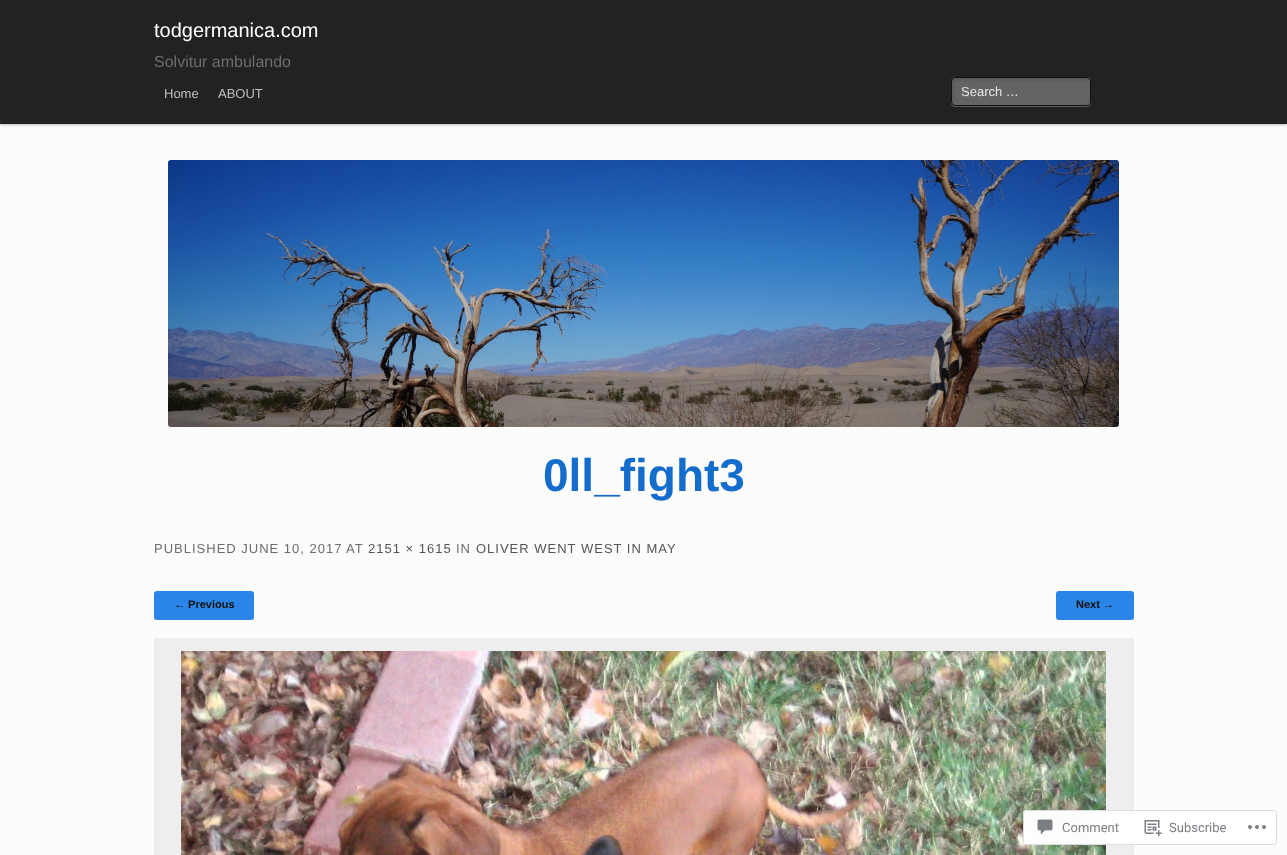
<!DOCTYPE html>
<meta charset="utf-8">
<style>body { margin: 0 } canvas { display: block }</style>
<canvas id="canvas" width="1287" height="855"></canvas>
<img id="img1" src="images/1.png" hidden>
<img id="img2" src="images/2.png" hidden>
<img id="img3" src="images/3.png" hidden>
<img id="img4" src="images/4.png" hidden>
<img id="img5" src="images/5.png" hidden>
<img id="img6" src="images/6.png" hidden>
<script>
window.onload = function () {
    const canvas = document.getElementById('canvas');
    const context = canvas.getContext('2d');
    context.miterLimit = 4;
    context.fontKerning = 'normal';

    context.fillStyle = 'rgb(252, 252, 252)';
    context.fillRect(0, 0, 1287, 855);
    context.fillStyle = 'rgba(0, 0, 0, 0.25)';
    context.filter = 'blur(1.5px)';
    context.beginPath();
    context.rect(0, 1, 1287, 124);
    context.fill();
    context.filter = 'none';
    context.fillStyle = 'rgb(34, 34, 34)';
    context.fillRect(0, 0, 1287, 123);
    context.fillStyle = 'rgb(31, 31, 31)';
    context.fillRect(0, 123, 1287, 1);
    context.fillStyle = 'rgb(89, 89, 89)';
    context.beginPath();
    context.moveTo(951, 102);
    context.lineTo(951, 103);
    context.bezierCurveTo(951, 105, 953, 107, 955, 107);
    context.lineTo(1087, 107);
    context.bezierCurveTo(1089, 107, 1091, 105, 1091, 103);
    context.lineTo(1091, 102);
    context.bezierCurveTo(1091, 104, 1089, 106, 1087, 106);
    context.lineTo(955, 106);
    context.bezierCurveTo(953, 106, 951, 104, 951, 102);
    context.closePath();
    context.fill();
    context.fillStyle = 'rgba(255, 255, 255, 0.3)';
    context.beginPath();
    context.roundRect(951, 77, 140, 29, 4);
    context.fill();
    context.drawImage(document.getElementById('img1'), 951, 78, 140, 27);
    context.beginPath();
    context.roundRect(951.5, 77.5, 139, 28, 3.5);
    context.strokeStyle = 'rgb(17, 17, 17)';
    context.stroke();
    context.drawImage(document.getElementById('img2'), 168, 160, 951, 267);
    context.fillStyle = 'rgb(42, 133, 232)';
    context.beginPath();
    context.roundRect(154, 591, 100, 29, 3);
    context.fill();
    context.beginPath();
    context.roundRect(1056, 591, 78, 29, 3);
    context.fill();
    context.fillStyle = 'rgb(238, 238, 238)';
    context.fillRect(154, 638, 980, 217);
    context.drawImage(document.getElementById('img3'), 181, 651, 925, 204);
    context.fillStyle = 'rgba(255, 255, 255, 0.98)';
    context.beginPath();
    context.roundRect(1023, 810, 254, 35, 3);
    context.fill();
    context.beginPath();
    context.roundRect(1023.5, 810.5, 253, 34, 2.5);
    context.strokeStyle = 'rgba(220, 220, 222, 0.98)';
    context.stroke();
    context.drawImage(document.getElementById('img4'), 1037, 819, 16, 16);
    context.drawImage(document.getElementById('img5'), 1144, 820, 18, 17);
    context.drawImage(document.getElementById('img6'), 1248, 825, 18, 4);
    context.font = '20px Liberation Sans';
    context.fillStyle = 'rgb(255, 255, 255)';
    context.fillText('todgermanica.com', 154, 37);
    context.font = '16px Liberation Sans';
    context.fillStyle = 'rgb(109, 109, 109)';
    context.fillText('Solvitur ambulando', 154, 67);
    context.font = '13px Liberation Sans';
    context.fillStyle = 'rgb(191, 191, 191)';
    context.fillText('Home', 164, 98);
    context.fillText('ABOUT', 218, 98);
    context.fillStyle = 'rgb(230, 230, 230)';
    context.fillText('Search …', 961, 96);
    context.font = 'bold 46px Liberation Sans';
    context.fillStyle = 'rgb(20, 109, 204)';
    context.fillText('0ll_fight3', 543, 491);
    context.letterSpacing = '1px';
    context.font = '13px Liberation Sans';
    context.fillStyle = 'rgb(109, 109, 109)';
    context.fillText('PUBLISHED JUNE 10, 2017', 154, 553);
    context.fillText('AT', 346, 553);
    context.fillStyle = 'rgb(85, 85, 85)';
    context.fillText('2151 × 1615', 368, 553);
    context.fillStyle = 'rgb(109, 109, 109)';
    context.fillText('IN', 456, 553);
    context.fillStyle = 'rgb(85, 85, 85)';
    context.fillText('OLIVER WENT WEST IN MAY', 476, 553);
    context.letterSpacing = '0px';
    context.font = 'bold 11px Liberation Sans';
    context.fillStyle = 'rgb(17, 17, 17)';
    context.fillText('← Previous', 174, 608);
    context.fillText('Next →', 1076, 608);
    context.font = '13px Roboto';
    context.fillStyle = 'rgb(123, 127, 132)';
    context.fillText('Comment', 1062, 832);
    context.fillText('Subscribe', 1169, 832);
};
</script>
